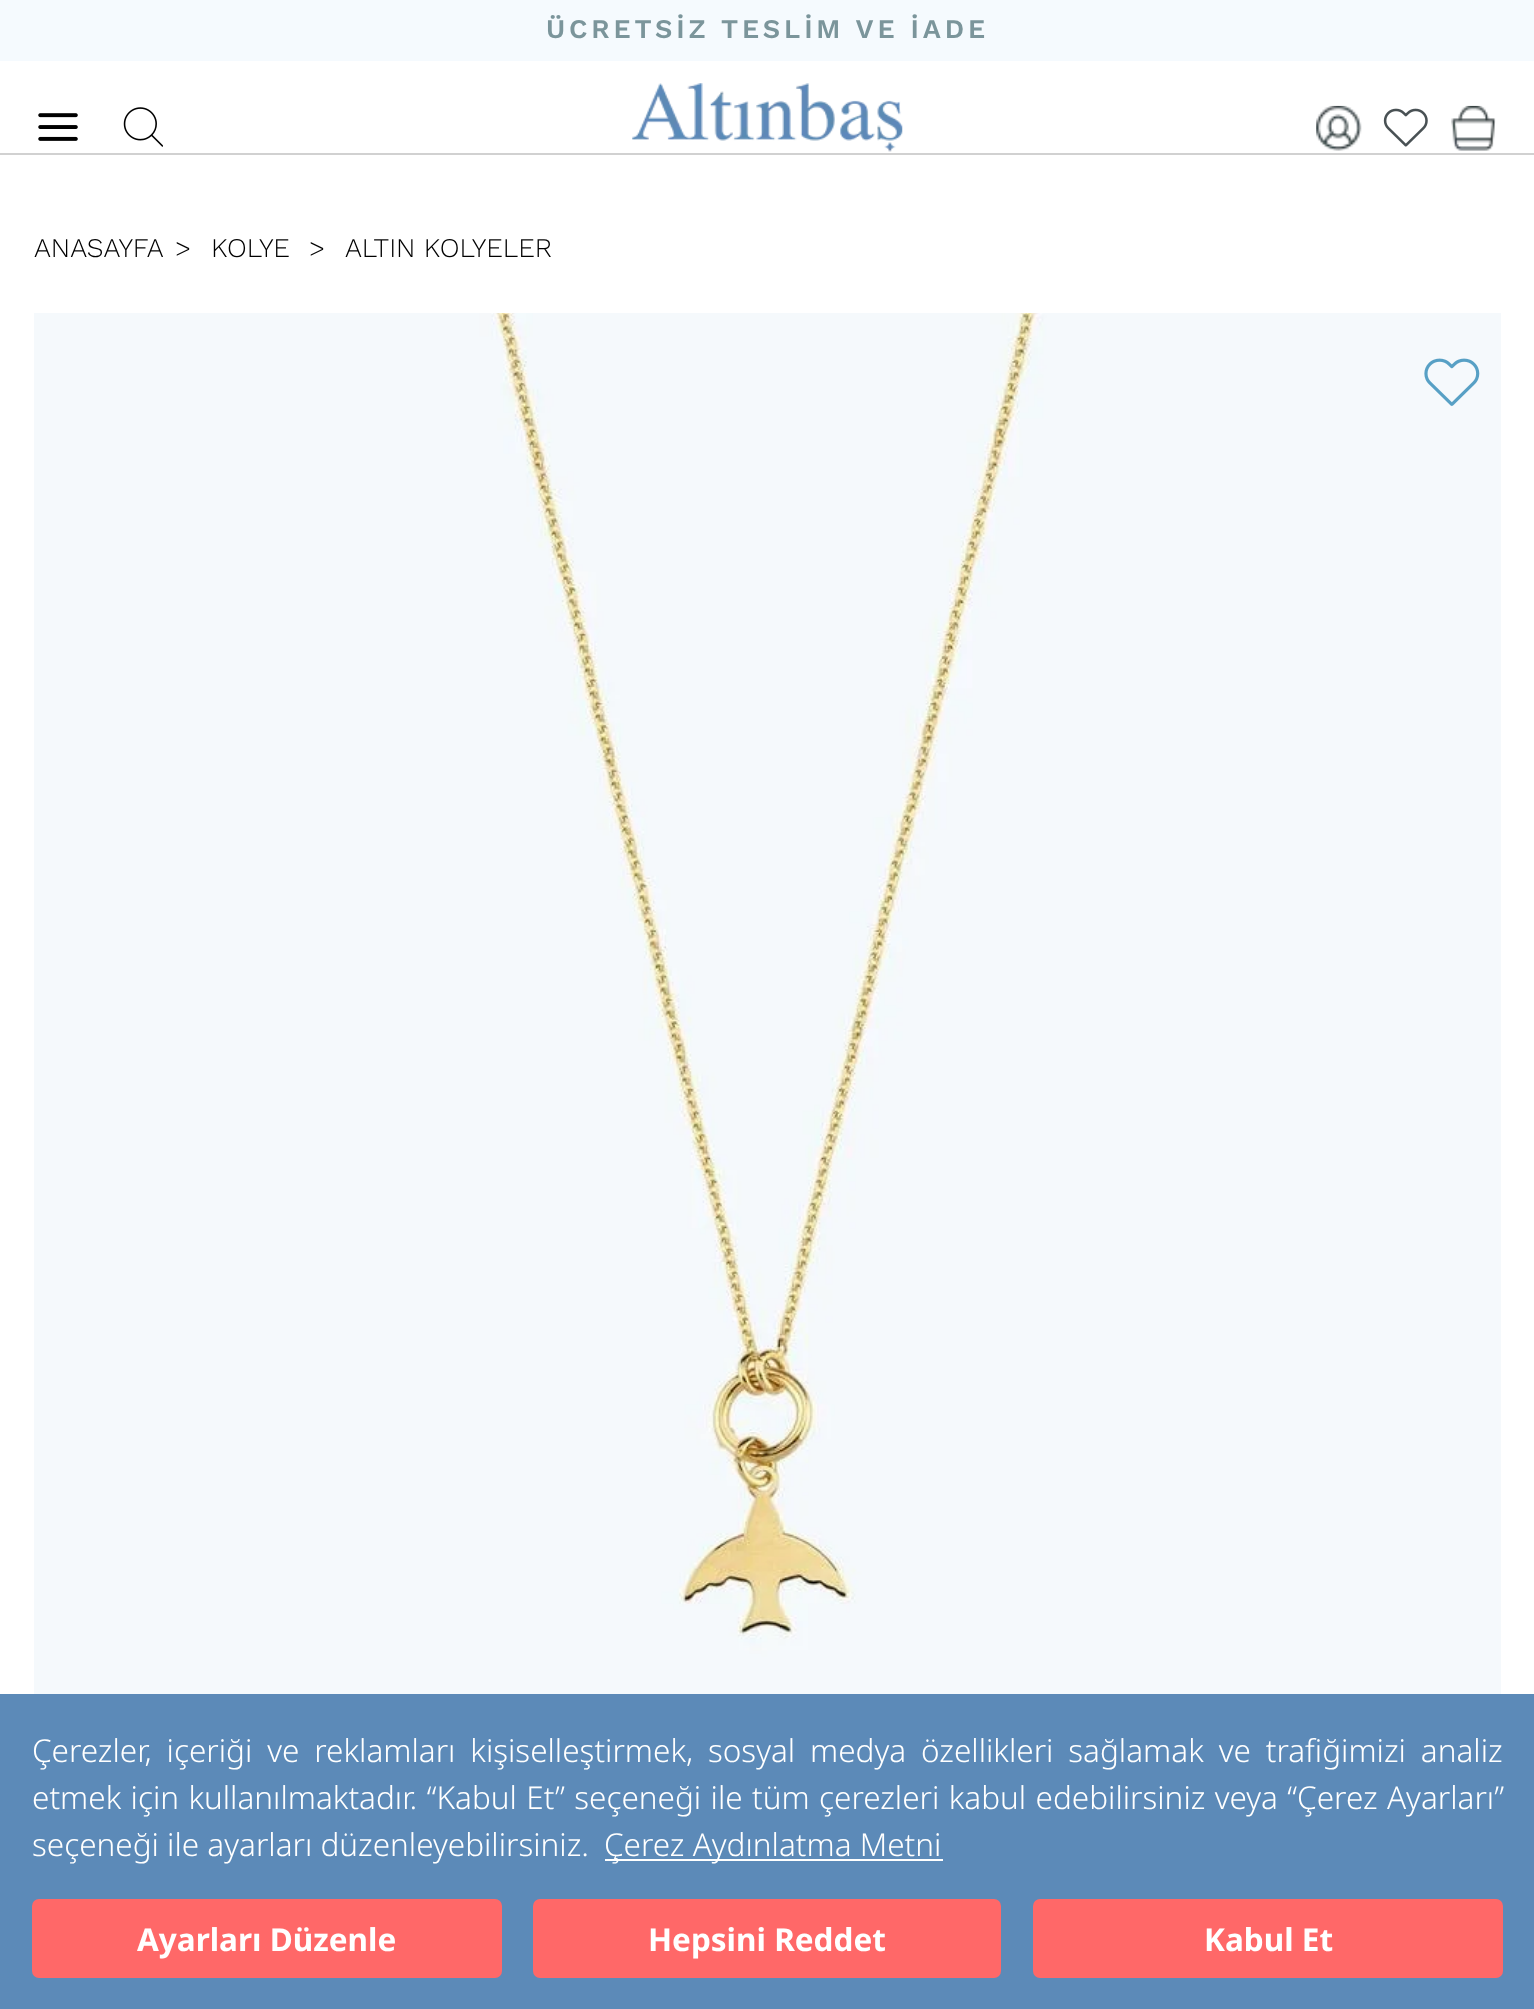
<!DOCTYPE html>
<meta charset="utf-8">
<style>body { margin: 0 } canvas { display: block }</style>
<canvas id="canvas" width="1534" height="2009"></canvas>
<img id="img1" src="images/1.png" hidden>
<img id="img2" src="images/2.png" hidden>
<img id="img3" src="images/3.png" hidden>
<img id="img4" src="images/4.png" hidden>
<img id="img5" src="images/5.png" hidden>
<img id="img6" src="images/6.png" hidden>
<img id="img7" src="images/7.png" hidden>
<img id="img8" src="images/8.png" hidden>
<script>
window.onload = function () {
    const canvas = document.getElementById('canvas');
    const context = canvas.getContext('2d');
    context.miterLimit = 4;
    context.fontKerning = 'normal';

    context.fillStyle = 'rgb(255, 255, 255)';
    context.fillRect(0, 0, 1534, 2009);
    context.fillStyle = 'rgb(209, 209, 209)';
    context.fillRect(0, 153, 1534, 2);
    context.fillStyle = 'rgb(245, 250, 254)';
    context.fillRect(0, 0, 1534, 61);
    context.drawImage(document.getElementById('img1'), 38, 113, 40, 28);
    context.drawImage(document.getElementById('img2'), 123, 107, 40, 40);
    context.drawImage(document.getElementById('img3'), 632, 83, 271, 69);
    context.drawImage(document.getElementById('img4'), 1316, 105, 46, 46);
    context.drawImage(document.getElementById('img5'), 1383, 108, 45, 39);
    context.drawImage(document.getElementById('img6'), 1451, 105, 45, 46);
    context.drawImage(document.getElementById('img7'), 34, 313, 1467, 1381);
    context.drawImage(document.getElementById('img8'), 1424, 358, 56, 49);
    context.fillStyle = 'rgb(92, 138, 184)';
    context.fillRect(0, 1694, 1534, 315);
    context.fillStyle = 'rgb(255, 255, 255)';
    context.fillRect(605, 1859, 338, 2);
    context.fillStyle = 'rgb(255, 104, 104)';
    context.beginPath();
    context.roundRect(32, 1899, 470, 79, 7);
    context.fill();
    context.beginPath();
    context.roundRect(533, 1899, 468, 79, 7);
    context.fill();
    context.beginPath();
    context.roundRect(1033, 1899, 470, 79, 7);
    context.fill();
    context.letterSpacing = '3.85px';
    context.font = '600 27px Work Sans';
    context.fillStyle = 'rgb(123, 149, 155)';
    context.fillText('ÜCRETSİZ TESLİM VE İADE', 546, 38);
    context.letterSpacing = '0px';
    context.font = '300 27px Work Sans';
    context.fillStyle = 'rgb(0, 0, 0)';
    context.fillText('ANASAYFA', 34, 257);
    context.fillText('>', 175, 257);
    context.fillText('KOLYE', 211, 257);
    context.fillText('>', 309, 257);
    context.fillText('ALTIN KOLYELER', 345, 257);
    context.wordSpacing = '6.75px';
    context.font = '300 31.5px Noto Sans';
    context.fillStyle = 'rgb(255, 255, 255)';
    context.fillText('Çerezler, içeriği ve reklamları kişiselleştirmek, sosyal medya özellikleri sağlamak ve trafiğimizi analiz', 32, 1762);
    context.wordSpacing = '1.2px';
    context.fillText('etmek için kullanılmaktadır. “Kabul Et” seçeneği ile tüm çerezleri kabul edebilirsiniz veya “Çerez Ayarları”', 32, 1809);
    context.wordSpacing = '0px';
    context.fillText('seçeneği ile ayarları düzenleyebilirsiniz.', 32, 1856);
    context.fillText('Çerez Aydınlatma Metni', 604, 1856);
    context.font = 'bold 31.5px Noto Sans';
    context.fillText('Ayarları Düzenle', 137, 1951);
    context.fillText('Hepsini Reddet', 648, 1951);
    context.fillText('Kabul Et', 1204, 1951);
};
</script>
